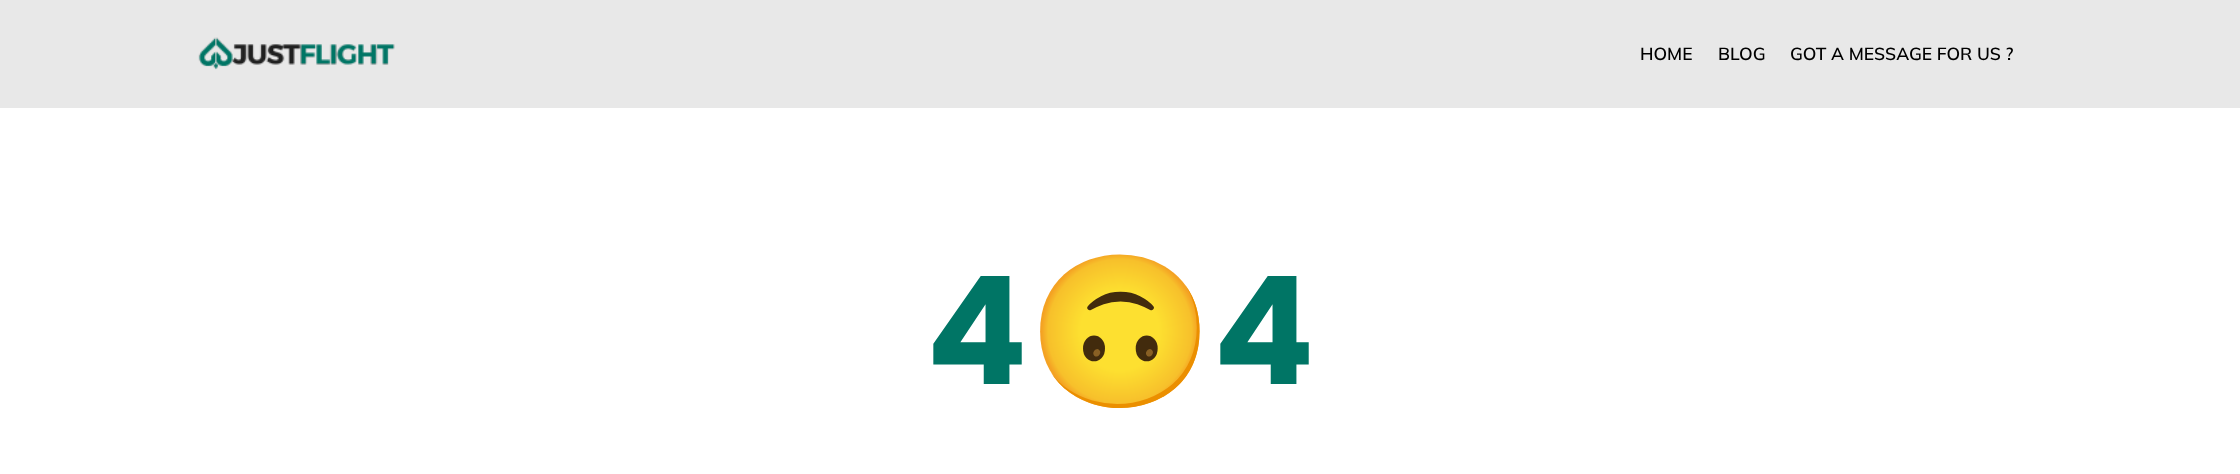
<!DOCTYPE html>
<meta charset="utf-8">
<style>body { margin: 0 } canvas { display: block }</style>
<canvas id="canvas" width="2240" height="474"></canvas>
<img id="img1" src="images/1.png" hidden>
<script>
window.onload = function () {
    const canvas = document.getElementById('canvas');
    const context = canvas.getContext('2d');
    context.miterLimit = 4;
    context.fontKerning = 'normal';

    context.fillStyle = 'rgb(255, 255, 255)';
    context.fillRect(0, 0, 2240, 474);
    context.fillStyle = 'rgb(232, 232, 232)';
    context.fillRect(0, 0, 2240, 108);
    context.drawImage(document.getElementById('img1'), 198, 37, 197, 33);
    context.font = '600 17.5px Mulish';
    context.fillStyle = 'rgb(0, 0, 0)';
    context.fillText('HOME', 1640, 60);
    context.fillText('BLOG', 1718, 60);
    context.fillText('GOT A MESSAGE FOR US ?', 1790, 60);
    context.font = 'bold 150px Poppins';
    context.fillStyle = 'rgb(0, 117, 101)';
    context.fillText('4', 926, 384);
    context.font = 'bold 150px Noto Color Emoji';
    context.fillText('🙃', 1027, 384);
    context.font = 'bold 150px Poppins';
    context.fillText('4', 1213, 384);
};
</script>
